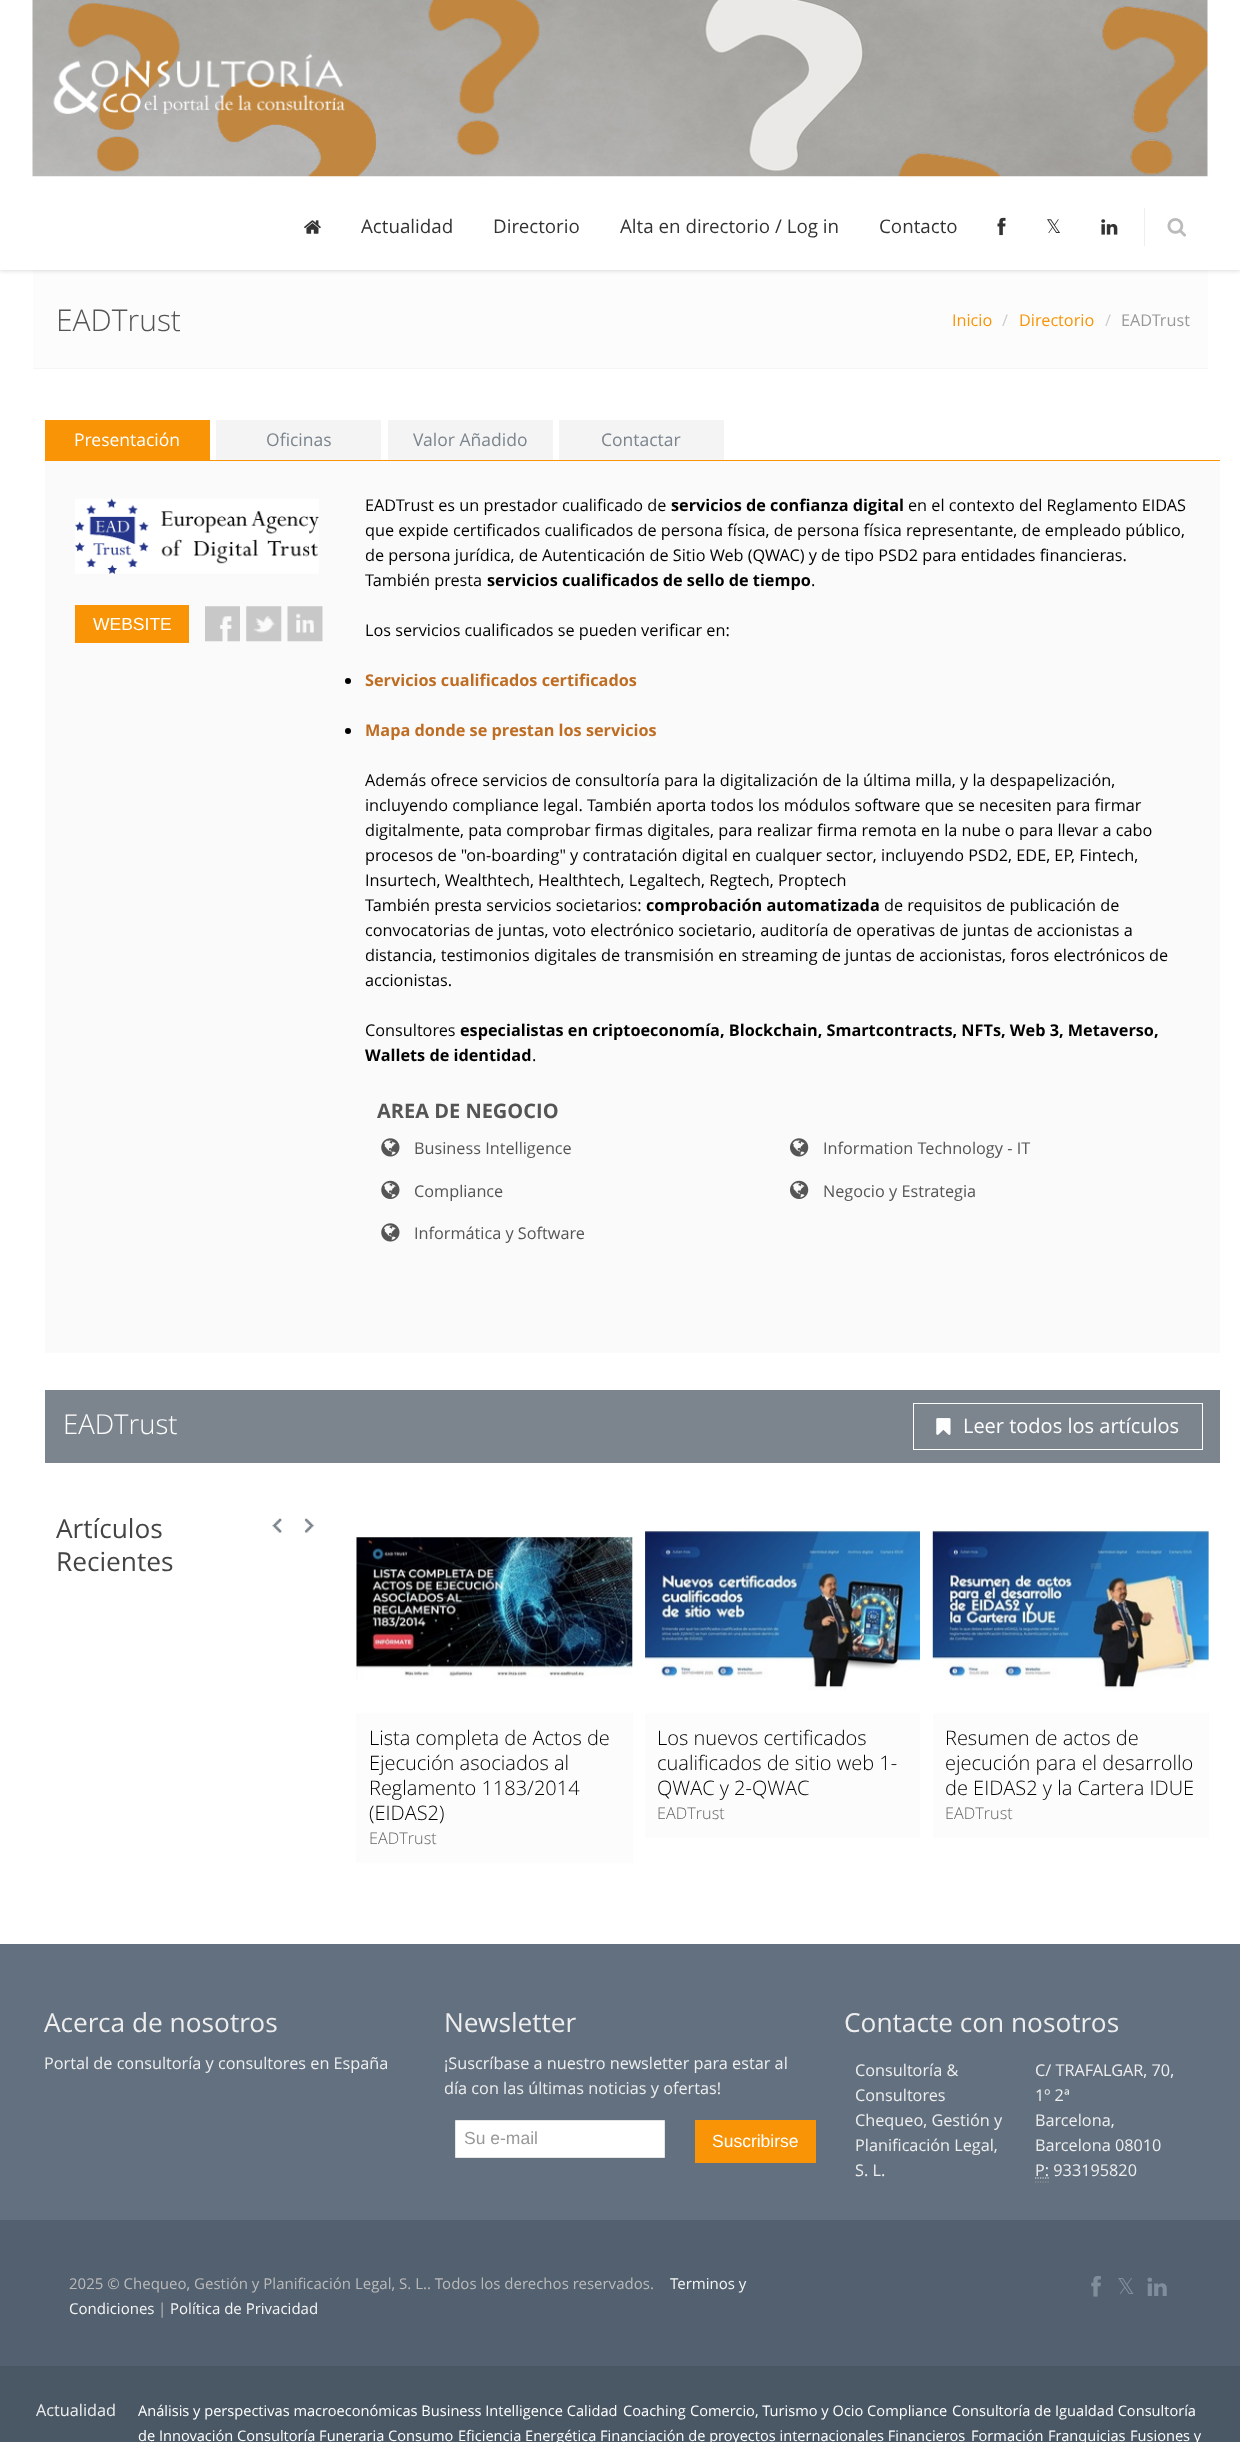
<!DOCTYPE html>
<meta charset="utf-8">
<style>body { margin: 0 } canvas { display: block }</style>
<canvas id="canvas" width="1240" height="2442"></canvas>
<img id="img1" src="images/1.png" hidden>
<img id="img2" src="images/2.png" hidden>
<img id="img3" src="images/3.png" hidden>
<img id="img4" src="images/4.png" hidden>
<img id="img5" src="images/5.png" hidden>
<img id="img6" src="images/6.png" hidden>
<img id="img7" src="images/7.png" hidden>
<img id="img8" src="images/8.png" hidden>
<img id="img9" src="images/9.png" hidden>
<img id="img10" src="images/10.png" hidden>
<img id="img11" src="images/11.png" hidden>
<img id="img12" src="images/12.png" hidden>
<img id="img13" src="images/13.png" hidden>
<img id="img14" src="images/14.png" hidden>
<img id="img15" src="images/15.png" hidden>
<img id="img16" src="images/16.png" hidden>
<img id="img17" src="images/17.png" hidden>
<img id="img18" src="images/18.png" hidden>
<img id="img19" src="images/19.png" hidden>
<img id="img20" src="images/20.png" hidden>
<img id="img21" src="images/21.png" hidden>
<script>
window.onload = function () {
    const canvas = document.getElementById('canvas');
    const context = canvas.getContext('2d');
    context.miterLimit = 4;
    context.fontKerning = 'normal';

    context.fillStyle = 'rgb(255, 255, 255)';
    context.fillRect(0, 0, 1240, 2442);
    context.fillStyle = 'rgb(252, 252, 252)';
    context.fillRect(33, 271, 1175, 97);
    context.fillStyle = 'rgb(245, 245, 245)';
    context.fillRect(33, 270, 1175, 1);
    context.save();
    context.beginPath();
    context.rect(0, 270, 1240, 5);
    context.clip();
    context.fillStyle = 'rgb(221, 221, 221)';
    context.filter = 'blur(2px)';
    context.beginPath();
    context.rect(0, 1, 1240, 270);
    context.fill();
    context.filter = 'none';
    context.restore();
    context.drawImage(document.getElementById('img1'), 32, 0, 1176, 177);
    context.drawImage(document.getElementById('img2'), 304, 220, 17, 14);
    context.drawImage(document.getElementById('img3'), 997, 217, 9, 19);
    context.drawImage(document.getElementById('img4'), 1101, 219, 17, 16);
    context.fillStyle = 'rgb(238, 238, 238)';
    context.fillRect(1144, 208, 1, 38);
    context.drawImage(document.getElementById('img5'), 1167, 218, 19, 19);
    context.fillStyle = 'rgb(245, 245, 245)';
    context.fillRect(33, 368, 1175, 1);
    context.fillStyle = 'rgb(248, 148, 6)';
    context.fillRect(45, 460, 1175, 1);
    context.fillRect(45, 420, 165, 40);
    context.fillStyle = 'rgb(244, 244, 244)';
    context.fillRect(216, 420, 165, 40);
    context.fillRect(388, 420, 165, 40);
    context.fillRect(559, 420, 165, 40);
    context.fillStyle = 'rgb(250, 250, 250)';
    context.fillRect(45, 461, 1175, 892);
    context.drawImage(document.getElementById('img6'), 75, 498, 244, 76);
    context.fillStyle = 'rgb(248, 148, 6)';
    context.fillRect(75, 605, 114, 38);
    context.drawImage(document.getElementById('img7'), 205, 606, 35, 36);
    context.drawImage(document.getElementById('img8'), 246, 606, 36, 36);
    context.drawImage(document.getElementById('img9'), 287, 606, 36, 36);
    context.fillStyle = 'rgb(0, 0, 0)';
    context.beginPath();
    context.arc(348, 681, 3, 0, 2 * Math.PI);
    context.fill();
    context.beginPath();
    context.arc(348, 731, 3, 0, 2 * Math.PI);
    context.fill();
    context.drawImage(document.getElementById('img10'), 381, 1138, 19, 19);
    context.drawImage(document.getElementById('img11'), 790, 1138, 19, 19);
    context.drawImage(document.getElementById('img12'), 381, 1180, 19, 19);
    context.drawImage(document.getElementById('img13'), 790, 1180, 19, 19);
    context.drawImage(document.getElementById('img10'), 381, 1223, 19, 19);
    context.fillStyle = 'rgb(124, 133, 142)';
    context.fillRect(45, 1390, 1175, 73);
    context.strokeStyle = 'rgb(255, 255, 255)';
    context.strokeRect(913.5, 1403.5, 289, 46);
    context.drawImage(document.getElementById('img14'), 936, 1418, 15, 17);
    context.drawImage(document.getElementById('img15'), 272, 1518, 10, 15);
    context.drawImage(document.getElementById('img16'), 304, 1518, 10, 15);
    context.drawImage(document.getElementById('img17'), 356, 1536, 277, 144);
    context.fillStyle = 'rgb(252, 252, 252)';
    context.fillRect(356, 1713, 277, 150);
    context.drawImage(document.getElementById('img18'), 645, 1530, 275, 161);
    context.fillRect(645, 1713, 275, 125);
    context.drawImage(document.getElementById('img19'), 932, 1530, 277, 161);
    context.fillRect(933, 1713, 276, 125);
    context.fillStyle = 'rgb(98, 112, 127)';
    context.fillRect(0, 1944, 1240, 276);
    context.fillStyle = 'rgb(255, 255, 255)';
    context.beginPath();
    context.rect(455.5, 2120.5, 209, 37);
    context.fill();
    context.strokeStyle = 'rgb(229, 229, 229)';
    context.stroke();
    context.fillStyle = 'rgb(248, 148, 6)';
    context.fillRect(695, 2120, 121, 43);
    context.beginPath();
    context.moveTo(1035, 2182);
    context.lineTo(1049, 2182);
    context.strokeStyle = 'rgb(153, 153, 153)';
    context.lineWidth = 1.2;
    context.setLineDash([1.25, 1.25]);
    context.stroke();
    context.beginPath();
    context.moveTo(1035, 2178);
    context.lineTo(1049, 2178);
    context.strokeStyle = 'rgb(238, 238, 238)';
    context.stroke();
    context.fillStyle = 'rgb(82, 96, 111)';
    context.fillRect(0, 2220, 1240, 146);
    context.drawImage(document.getElementById('img20'), 1091, 2276, 10, 21);
    context.drawImage(document.getElementById('img21'), 1147, 2277, 20, 19);
    context.fillStyle = 'rgb(74, 88, 102)';
    context.fillRect(0, 2366, 1240, 76);
    context.font = '18.75px Open Sans';
    context.fillStyle = 'rgb(51, 51, 51)';
    context.fillText('Actualidad', 361, 233);
    context.fillText('Directorio', 493, 233);
    context.fillText('Alta en directorio / Log in', 620, 233);
    context.fillText('Contacto', 879, 233);
    context.font = '18.75px DejaVu Sans';
    context.fillText('𝕏', 1046, 233);
    context.font = '300 30px Open Sans';
    context.fillStyle = 'rgb(85, 85, 85)';
    context.fillText('EADTrust', 56, 331);
    context.font = '16.25px Open Sans';
    context.fillStyle = 'rgb(248, 148, 6)';
    context.fillText('Inicio', 952, 326);
    context.fillStyle = 'rgb(204, 204, 204)';
    context.fillText('/', 1002, 326);
    context.fillStyle = 'rgb(248, 148, 6)';
    context.fillText('Directorio', 1019, 326);
    context.fillStyle = 'rgb(204, 204, 204)';
    context.fillText('/', 1105, 326);
    context.fillStyle = 'rgb(153, 153, 153)';
    context.fillText('EADTrust', 1121, 326);
    context.font = '17.5px Open Sans';
    context.fillStyle = 'rgb(255, 255, 255)';
    context.fillText('Presentación', 74, 446);
    context.fillStyle = 'rgb(124, 133, 142)';
    context.fillText('Oficinas', 266, 446);
    context.fillText('Valor Añadido', 413, 446);
    context.fillText('Contactar', 601, 446);
    context.font = '17.5px Liberation Sans';
    context.fillStyle = 'rgb(255, 255, 255)';
    context.fillText('WEBSITE', 93, 630);
    context.font = '16.25px Open Sans';
    context.fillStyle = 'rgb(0, 0, 0)';
    context.fillText('EADTrust es un prestador cualificado de', 365, 511);
    context.font = 'bold 16.25px Open Sans';
    context.fillText('servicios de confianza digital', 671, 511);
    context.font = '16.25px Open Sans';
    context.fillText('en el contexto del Reglamento EIDAS', 908, 511);
    context.fillText('que expide certificados cualificados de persona física, de persona física representante, de empleado público,', 365, 536);
    context.fillText('de persona jurídica, de Autenticación de Sitio Web (QWAC) y de tipo PSD2 para entidades financieras.', 365, 561);
    context.fillText('También presta', 365, 586);
    context.font = 'bold 16.25px Open Sans';
    context.fillText('servicios cualificados de sello de tiempo', 487, 586);
    context.font = '16.25px Open Sans';
    context.fillText('.', 811, 586);
    context.fillText('Los servicios cualificados se pueden verificar en:', 365, 636);
    context.font = 'bold 16.25px Open Sans';
    context.fillStyle = 'rgb(191, 109, 35)';
    context.fillText('Servicios cualificados certificados', 365, 686);
    context.fillText('Mapa donde se prestan los servicios', 365, 736);
    context.font = '16.25px Open Sans';
    context.fillStyle = 'rgb(0, 0, 0)';
    context.fillText('Además ofrece servicios de consultoría para la digitalización de la última milla, y la despapelización,', 365, 786);
    context.fillText('incluyendo compliance legal. También aporta todos los módulos software que se necesiten para firmar', 365, 811);
    context.fillText('digitalmente, pata comprobar firmas digitales, para realizar firma remota en la nube o para llevar a cabo', 365, 836);
    context.fillText('procesos de "on-boarding" y contratación digital en cualquer sector, incluyendo PSD2, EDE, EP, Fintech,', 365, 861);
    context.fillText('Insurtech, Wealthtech, Healthtech, Legaltech, Regtech, Proptech', 365, 886);
    context.fillText('También presta servicios societarios:', 365, 911);
    context.font = 'bold 16.25px Open Sans';
    context.fillText('comprobación automatizada', 646, 911);
    context.font = '16.25px Open Sans';
    context.fillText('de requisitos de publicación de', 884, 911);
    context.fillText('convocatorias de juntas, voto electrónico societario, auditoría de operativas de juntas de accionistas a', 365, 936);
    context.fillText('distancia, testimonios digitales de transmisión en streaming de juntas de accionistas, foros electrónicos de', 365, 961);
    context.fillText('accionistas.', 365, 986);
    context.fillText('Consultores', 365, 1036);
    context.font = 'bold 16.25px Open Sans';
    context.fillText('especialistas en criptoeconomía, Blockchain, Smartcontracts, NFTs, Web 3, Metaverso,', 460, 1036);
    context.fillText('Wallets de identidad', 365, 1061);
    context.font = '16.25px Open Sans';
    context.fillText('.', 532, 1061);
    context.font = 'bold 20px Open Sans';
    context.fillStyle = 'rgb(85, 85, 85)';
    context.fillText('AREA DE NEGOCIO', 377, 1118);
    context.font = '16.25px Open Sans';
    context.fillText('Business Intelligence', 414, 1154);
    context.fillText('Information Technology - IT', 823, 1154);
    context.fillText('Compliance', 414, 1197);
    context.fillText('Negocio y Estrategia', 823, 1197);
    context.fillText('Informática y Software', 414, 1239);
    context.font = '300 27.5px Open Sans';
    context.fillStyle = 'rgb(255, 255, 255)';
    context.fillText('EADTrust', 63, 1434);
    context.font = '20px Open Sans';
    context.fillText('Leer todos los artículos', 963, 1433);
    context.font = '26.25px Open Sans';
    context.fillStyle = 'rgb(68, 68, 68)';
    context.fillText('Artículos', 56, 1538);
    context.fillText('Recientes', 56, 1571);
    context.font = '300 20px Open Sans';
    context.fillStyle = 'rgb(0, 0, 0)';
    context.fillText('Lista completa de Actos de', 369, 1745);
    context.fillText('Ejecución asociados al', 369, 1770);
    context.fillText('Reglamento 1183/2014', 369, 1795);
    context.fillText('(EIDAS2)', 369, 1820);
    context.font = '300 16.25px Open Sans';
    context.fillStyle = 'rgb(101, 101, 101)';
    context.fillText('EADTrust', 369, 1844);
    context.font = '300 20px Open Sans';
    context.fillStyle = 'rgb(0, 0, 0)';
    context.fillText('Los nuevos certificados', 657, 1745);
    context.fillText('cualificados de sitio web 1-', 657, 1770);
    context.fillText('QWAC y 2-QWAC', 657, 1795);
    context.font = '300 16.25px Open Sans';
    context.fillStyle = 'rgb(101, 101, 101)';
    context.fillText('EADTrust', 657, 1819);
    context.font = '300 20px Open Sans';
    context.fillStyle = 'rgb(0, 0, 0)';
    context.fillText('Resumen de actos de', 945, 1745);
    context.fillText('ejecución para el desarrollo', 945, 1770);
    context.fillText('de EIDAS2 y la Cartera IDUE', 945, 1795);
    context.font = '300 16.25px Open Sans';
    context.fillStyle = 'rgb(101, 101, 101)';
    context.fillText('EADTrust', 945, 1819);
    context.font = '26.25px Open Sans';
    context.fillStyle = 'rgb(238, 238, 238)';
    context.fillText('Acerca de nosotros', 44, 2032);
    context.font = '16.25px Open Sans';
    context.fillText('Portal de consultoría y consultores en España', 44, 2069);
    context.font = '26.25px Open Sans';
    context.fillText('Newsletter', 444, 2032);
    context.font = '16.25px Open Sans';
    context.fillText('¡Suscríbase a nuestro newsletter para estar al', 444, 2069);
    context.fillText('día con las últimas noticias y ofertas!', 444, 2094);
    context.font = '17.5px Liberation Sans';
    context.fillStyle = 'rgb(153, 153, 153)';
    context.fillText('Su e-mail', 464, 2144);
    context.fillStyle = 'rgb(255, 255, 255)';
    context.fillText('Suscribirse', 712, 2147);
    context.font = '26.25px Open Sans';
    context.fillStyle = 'rgb(238, 238, 238)';
    context.fillText('Contacte con nosotros', 844, 2032);
    context.font = '16.25px Open Sans';
    context.fillText('Consultoría &', 855, 2076);
    context.fillText('Consultores', 855, 2101);
    context.fillText('Chequeo, Gestión y', 855, 2126);
    context.fillText('Planificación Legal,', 855, 2151);
    context.fillText('S. L.', 855, 2176);
    context.fillText('C/ TRAFALGAR, 70,', 1035, 2076);
    context.fillText('1º 2ª', 1035, 2101);
    context.fillText('Barcelona,', 1035, 2126);
    context.fillText('Barcelona 08010', 1035, 2151);
    context.fillText('P: 933195820', 1035, 2176);
    context.font = '15px Open Sans';
    context.fillStyle = 'rgb(187, 187, 187)';
    context.fillText('2025 © Chequeo, Gestión y Planificación Legal, S. L.. Todos los derechos reservados.', 69, 2289);
    context.fillStyle = 'rgb(245, 245, 245)';
    context.fillText('Terminos y', 670, 2289);
    context.fillText('Condiciones', 69, 2314);
    context.fillStyle = 'rgb(187, 187, 187)';
    context.fillText('|', 158, 2314);
    context.fillStyle = 'rgb(245, 245, 245)';
    context.fillText('Política de Privacidad', 170, 2314);
    context.font = '22px DejaVu Sans';
    context.fillStyle = 'rgb(128, 142, 156)';
    context.fillText('𝕏', 1117, 2294);
    context.font = '16.25px Open Sans';
    context.fillStyle = 'rgb(238, 238, 238)';
    context.fillText('Actualidad', 36, 2416);
    context.font = '14.6px Open Sans';
    context.fillStyle = 'rgb(255, 255, 255)';
    context.fillText('Análisis y perspectivas macroeconómicas Business Intelligence Calidad', 138, 2416);
    context.fillText('Coaching', 623, 2416);
    context.fillText('Comercio, Turismo y Ocio Compliance', 690, 2416);
    context.fillText('Consultoría de Igualdad Consultoría', 952, 2416);
    context.fillText('de Innovación', 138, 2441);
    context.fillText('Consultoría Funeraria Consumo', 237, 2441);
    context.fillText('Eficiencia Energética Financiación de proyectos internacionales Financieros', 458, 2441);
    context.fillText('Formación', 971, 2441);
    context.fillText('Franquicias', 1048, 2441);
    context.fillText('Fusiones y', 1130, 2441);
};
</script>
